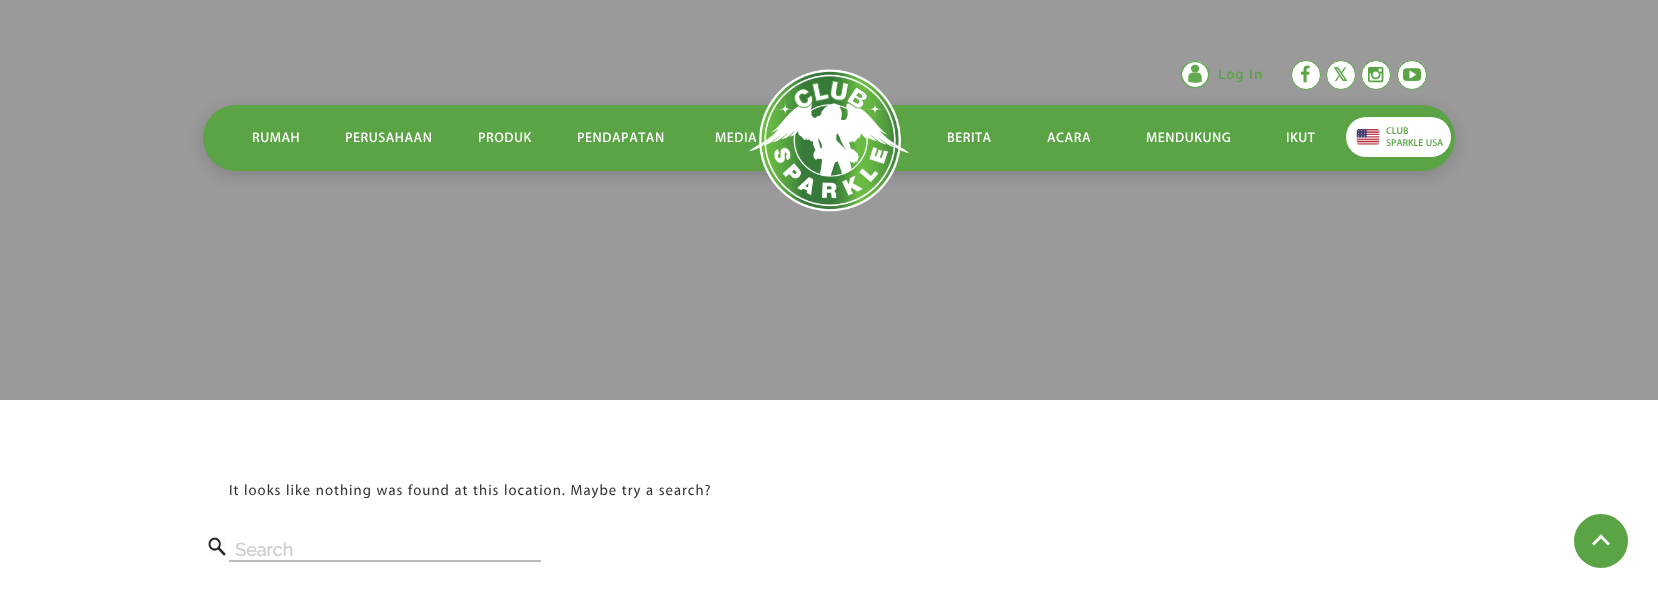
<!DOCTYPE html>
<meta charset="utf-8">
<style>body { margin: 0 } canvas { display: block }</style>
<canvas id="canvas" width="1658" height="598"></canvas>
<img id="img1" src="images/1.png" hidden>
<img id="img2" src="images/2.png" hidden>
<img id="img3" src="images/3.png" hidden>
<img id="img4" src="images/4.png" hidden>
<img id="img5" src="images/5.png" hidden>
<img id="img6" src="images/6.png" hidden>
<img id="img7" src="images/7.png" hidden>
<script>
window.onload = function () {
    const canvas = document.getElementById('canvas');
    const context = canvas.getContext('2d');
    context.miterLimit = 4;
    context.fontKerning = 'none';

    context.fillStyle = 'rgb(255, 255, 255)';
    context.fillRect(0, 0, 1658, 598);
    context.fillStyle = 'rgb(154, 154, 154)';
    context.fillRect(0, 0, 1658, 400);
    context.fillStyle = 'rgba(0, 0, 0, 0.15)';
    context.filter = 'blur(8px)';
    context.beginPath();
    context.roundRect(203, 109, 1252, 66, 33);
    context.fill();
    context.filter = 'none';
    context.fillStyle = 'rgb(90, 164, 69)';
    context.beginPath();
    context.roundRect(203, 105, 1252, 66, 33);
    context.fill();
    context.drawImage(document.getElementById('img1'), 749, 69, 160, 143);
    context.drawImage(document.getElementById('img2'), 1180, 61, 30, 28);
    context.fillStyle = 'rgb(255, 255, 255)';
    context.beginPath();
    context.arc(1306, 75, 14.5, 0, 2 * Math.PI);
    context.fill();
    context.strokeStyle = 'rgb(90, 164, 69)';
    context.stroke();
    context.drawImage(document.getElementById('img3'), 1300, 65, 10, 18);
    context.beginPath();
    context.arc(1341, 75, 14.5, 0, 2 * Math.PI);
    context.fill();
    context.stroke();
    context.beginPath();
    context.arc(1376, 75, 14.5, 0, 2 * Math.PI);
    context.fill();
    context.stroke();
    context.drawImage(document.getElementById('img4'), 1368, 66, 16, 17);
    context.beginPath();
    context.arc(1412, 75, 14.5, 0, 2 * Math.PI);
    context.fill();
    context.stroke();
    context.drawImage(document.getElementById('img5'), 1403, 68, 18, 13);
    context.beginPath();
    context.roundRect(1346, 117, 105, 40, 20);
    context.fill();
    context.drawImage(document.getElementById('img6'), 1356, 129, 24, 16);
    context.drawImage(document.getElementById('img7'), 208, 537, 18, 19);
    context.fillStyle = 'rgb(187, 187, 187)';
    context.fillRect(229, 560, 312, 2);
    context.fillStyle = 'rgb(90, 164, 69)';
    context.beginPath();
    context.arc(1601, 541, 26, 0, 2 * Math.PI);
    context.fill();
    context.lineWidth = 2;
    context.stroke();
    context.fillStyle = 'rgb(255, 255, 255)';
    context.beginPath();
    context.moveTo(1592, 543.5);
    context.lineTo(1601, 534.5);
    context.lineTo(1603, 536.5);
    context.lineTo(1594, 545.5);
    context.closePath();
    context.fill();
    context.beginPath();
    context.moveTo(1599, 536.5);
    context.lineTo(1601, 534.5);
    context.lineTo(1610, 543.5);
    context.lineTo(1608, 545.5);
    context.closePath();
    context.fill();
    context.letterSpacing = '1px';
    context.font = '600 15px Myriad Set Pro';
    context.fillStyle = 'rgb(90, 164, 69)';
    context.fillText('Log In', 1218, 79);
    context.letterSpacing = '0.5px';
    context.font = 'bold 18px DejaVu Sans';
    context.fillText('𝕏', 1333, 81);
    context.font = '600 14px Myriad Set Pro';
    context.fillStyle = 'rgb(255, 255, 255)';
    context.fillText('RUMAH', 252, 142);
    context.fillText('PERUSAHAAN', 345, 142);
    context.fillText('PRODUK', 478, 142);
    context.fillText('PENDAPATAN', 577, 142);
    context.fillText('MEDIA', 715, 142);
    context.fillText('BERITA', 947, 142);
    context.fillText('ACARA', 1047, 142);
    context.fillText('MENDUKUNG', 1146, 142);
    context.fillText('IKUT', 1286, 142);
    context.letterSpacing = '0px';
    context.font = '600 10px Myriad Set Pro';
    context.fillStyle = 'rgb(90, 164, 69)';
    context.fillText('CLUB', 1386, 134);
    context.fillText('SPARKLE USA', 1386, 146);
    context.letterSpacing = '1px';
    context.font = '500 15px Myriad Set Pro';
    context.fillStyle = 'rgb(51, 51, 51)';
    context.fillText('It looks like nothing was found at this location. Maybe try a search?', 229, 495);
    context.letterSpacing = '0px';
    context.font = 'bold 18px Raleway';
    context.fillStyle = 'rgb(205, 205, 205)';
    context.fillText('Search', 235, 556);
};
</script>
